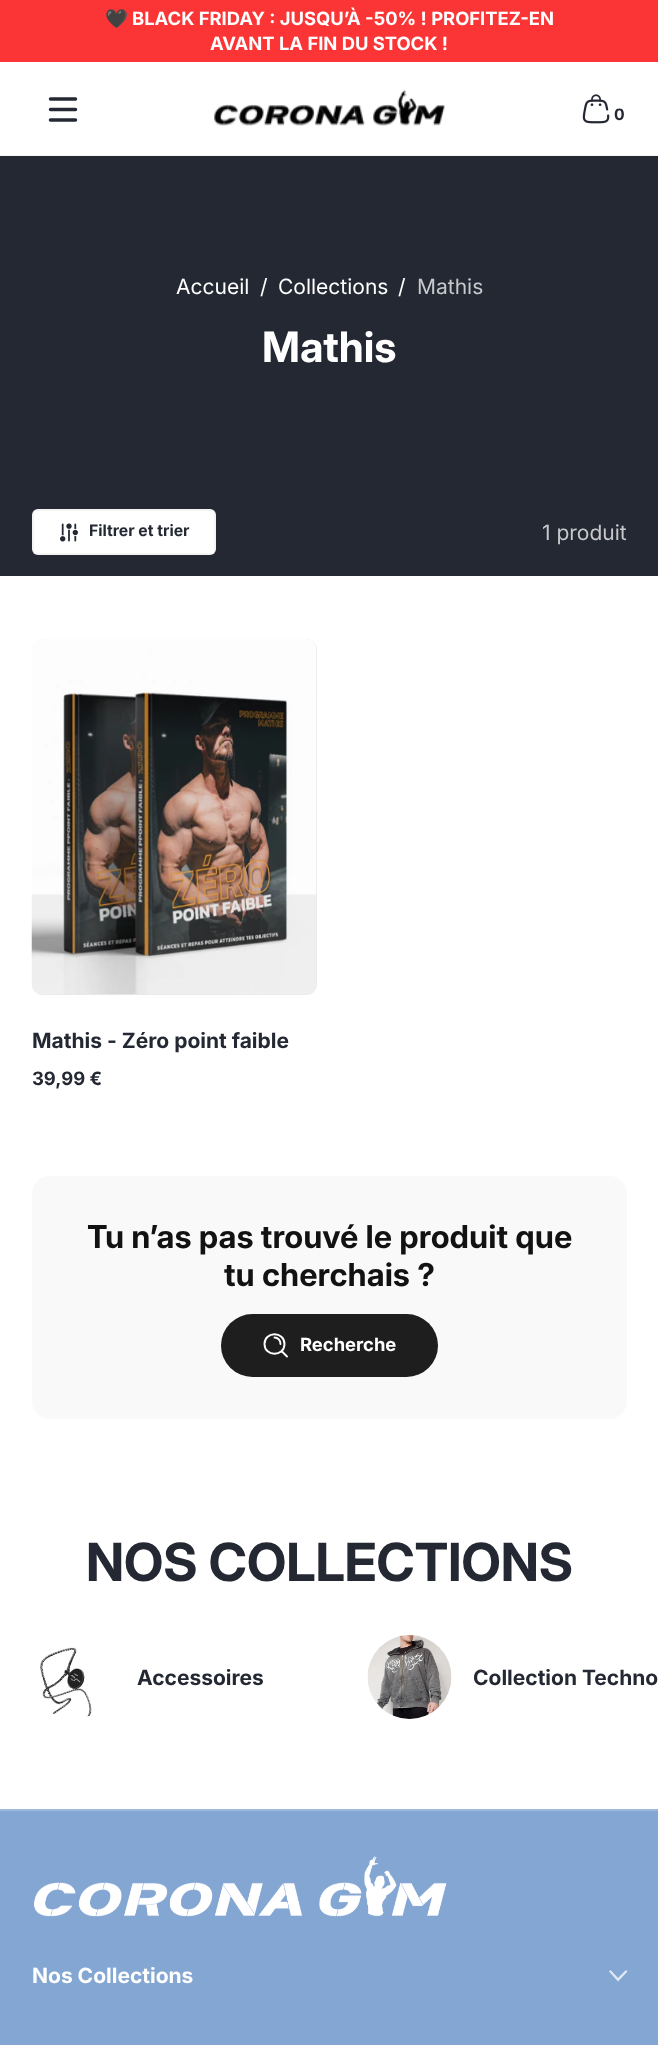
<!DOCTYPE html>
<meta charset="utf-8">
<style>body { margin: 0 } canvas { display: block }</style>
<canvas id="canvas" width="658" height="2045"></canvas>
<img id="img1" src="images/1.png" hidden>
<img id="img2" src="images/2.png" hidden>
<img id="img3" src="images/3.png" hidden>
<img id="img4" src="images/4.png" hidden>
<img id="img5" src="images/5.png" hidden>
<img id="img6" src="images/6.png" hidden>
<img id="img7" src="images/7.png" hidden>
<script>
window.onload = function () {
    const canvas = document.getElementById('canvas');
    const context = canvas.getContext('2d');
    context.miterLimit = 4;
    context.fontKerning = 'normal';

    context.fillStyle = 'rgb(255, 255, 255)';
    context.fillRect(0, 0, 658, 2045);
    context.fillStyle = 'rgb(244, 244, 245)';
    context.fillRect(0, 155, 658, 1);
    context.fillStyle = 'rgb(251, 53, 53)';
    context.fillRect(0, 0, 658, 62);
    context.beginPath();
    context.moveTo(50.5, 99);
    context.lineTo(75.5, 99);
    context.moveTo(50.5, 109.5);
    context.lineTo(75.5, 109.5);
    context.moveTo(50.5, 120);
    context.lineTo(75.5, 120);
    context.strokeStyle = 'rgb(36, 40, 51)';
    context.lineWidth = 3.5;
    context.lineCap = 'round';
    context.stroke();
    context.drawImage(document.getElementById('img1'), 214, 89, 231, 37);
    context.drawImage(document.getElementById('img2'), 582, 94, 28, 30);
    context.fillStyle = 'rgb(36, 40, 51)';
    context.fillRect(0, 156, 658, 420);
    context.fillStyle = 'rgb(255, 255, 255)';
    context.beginPath();
    context.roundRect(32, 509, 184, 46, 6);
    context.fill();
    context.drawImage(document.getElementById('img3'), 60, 523, 18, 19);
    context.strokeStyle = 'rgba(36, 40, 51, 0.05)';
    context.lineWidth = 2;
    context.strokeRect(33, 510, 182, 44);
    context.fillStyle = 'rgb(233, 234, 235)';
    context.beginPath();
    context.roundRect(32, 639, 285, 356, 11);
    context.fill();
    context.drawImage(document.getElementById('img4'), 31, 639, 286, 356);
    context.fillStyle = 'rgb(249, 249, 249)';
    context.beginPath();
    context.roundRect(32, 1176, 595, 243, 18);
    context.fill();
    context.fillStyle = 'rgb(18, 18, 18)';
    context.beginPath();
    context.roundRect(221, 1314, 217, 63, 31.5);
    context.fill();
    context.beginPath();
    context.moveTo(274.5, 1337.5);
    context.bezierCurveTo(278, 1337.5, 280.5, 1340.5, 280.5, 1344);
    context.moveTo(281.5, 1351);
    context.lineTo(287, 1356.5);
    context.moveTo(284.5, 1344);
    context.bezierCurveTo(284.5, 1357, 264.5, 1357, 264.5, 1344);
    context.bezierCurveTo(264.5, 1331, 284.5, 1331, 284.5, 1344);
    context.closePath();
    context.strokeStyle = 'rgb(255, 255, 255)';
    context.lineWidth = 1.9;
    context.lineJoin = 'round';
    context.stroke();
    context.fillStyle = 'rgba(255, 255, 255, 0.05)';
    context.beginPath();
    context.moveTo(252, 1314);
    context.lineTo(406, 1314);
    context.bezierCurveTo(424, 1314, 438, 1328, 438, 1346);
    context.bezierCurveTo(438, 1363, 424, 1377, 406, 1377);
    context.lineTo(252, 1377);
    context.bezierCurveTo(235, 1377, 221, 1363, 221, 1346);
    context.bezierCurveTo(221, 1328, 235, 1314, 252, 1314);
    context.closePath();
    context.fill();
    context.drawImage(document.getElementById('img5'), 40, 1647, 52, 70);
    context.drawImage(document.getElementById('img6'), 367, 1635, 85, 84);
    context.fillStyle = 'rgb(132, 166, 211)';
    context.fillRect(0, 1811, 658, 234);
    context.fillStyle = 'rgb(157, 184, 220)';
    context.fillRect(0, 1809, 658, 2);
    context.drawImage(document.getElementById('img7'), 34, 1856, 413, 61);
    context.fillStyle = 'rgb(224, 233, 244)';
    context.beginPath();
    context.moveTo(618, 1978);
    context.lineTo(626, 1970);
    context.lineTo(627.5, 1971.5);
    context.lineTo(618, 1981.5);
    context.lineTo(609, 1971.5);
    context.lineTo(610.5, 1970);
    context.closePath();
    context.fill();
    context.font = 'bold 18.4px Noto Color Emoji';
    context.fillStyle = 'rgb(255, 255, 255)';
    context.fillText('🖤', 105, 25);
    context.font = 'bold 18.4px Inter';
    context.fillText('BLACK FRIDAY : JUSQU’À -50% ! PROFITEZ-EN', 132, 25);
    context.fillText('AVANT LA FIN DU STOCK !', 210, 50);
    context.font = 'bold 15.75px Inter';
    context.fillStyle = 'rgb(36, 40, 51)';
    context.fillText('0', 614, 120);
    context.font = '21px Inter';
    context.fillStyle = 'rgb(255, 255, 255)';
    context.fillText('Accueil', 176, 294);
    context.fillText('/', 260, 294);
    context.fillText('Collections', 278, 294);
    context.fillText('/', 398, 294);
    context.fillStyle = 'rgb(200, 201, 204)';
    context.fillText('Mathis', 417, 294);
    context.font = 'bold 42px "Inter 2"';
    context.fillStyle = 'rgb(255, 255, 255)';
    context.fillText('Mathis', 262, 362);
    context.font = 'bold 15.75px Inter';
    context.fillStyle = 'rgb(36, 40, 51)';
    context.fillText('Filtrer et trier', 89, 536);
    context.font = '21px Inter';
    context.fillStyle = 'rgb(200, 201, 204)';
    context.fillText('1 produit', 542, 540);
    context.font = 'bold 21px Inter';
    context.fillStyle = 'rgb(36, 40, 51)';
    context.fillText('Mathis - Zéro point faible', 32, 1048);
    context.font = 'bold 18.4px Inter';
    context.fillText('39,99 €', 32, 1085);
    context.font = 'bold 31.5px "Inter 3"';
    context.fillStyle = 'rgb(18, 18, 18)';
    context.fillText('Tu n’as pas trouvé le produit que', 87, 1248);
    context.fillText('tu cherchais ?', 224, 1286);
    context.font = 'bold 18.4px Inter';
    context.fillStyle = 'rgb(255, 255, 255)';
    context.fillText('Recherche', 300, 1351);
    context.font = 'bold 52.5px "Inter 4"';
    context.fillStyle = 'rgb(36, 40, 51)';
    context.fillText('NOS COLLECTIONS', 86, 1581);
    context.font = 'bold 21px Inter';
    context.fillText('Accessoires', 137, 1685);
    context.fillText('Collection Techno', 473, 1685);
    context.fillStyle = 'rgb(255, 255, 255)';
    context.fillText('Nos Collections', 32, 1983);
};
</script>
